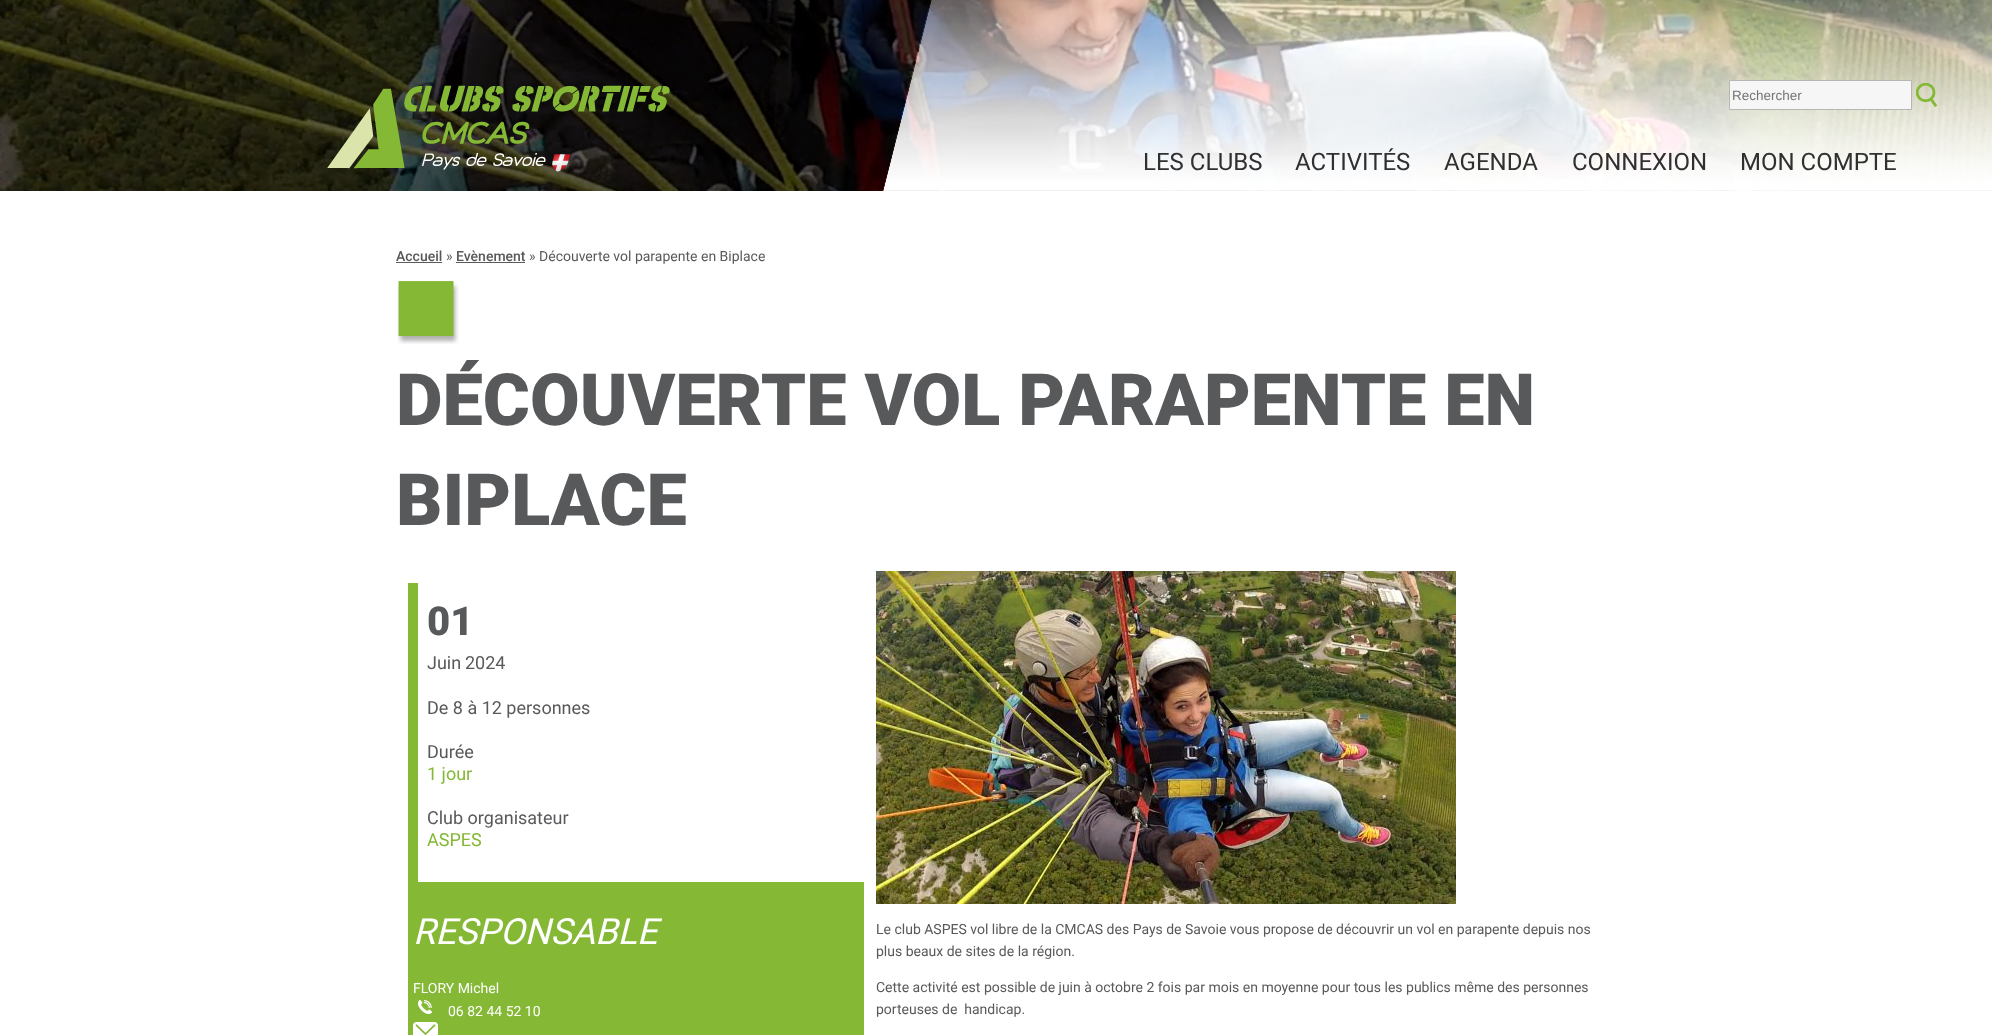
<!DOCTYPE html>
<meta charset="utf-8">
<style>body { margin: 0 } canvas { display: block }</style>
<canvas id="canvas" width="1992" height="1035"></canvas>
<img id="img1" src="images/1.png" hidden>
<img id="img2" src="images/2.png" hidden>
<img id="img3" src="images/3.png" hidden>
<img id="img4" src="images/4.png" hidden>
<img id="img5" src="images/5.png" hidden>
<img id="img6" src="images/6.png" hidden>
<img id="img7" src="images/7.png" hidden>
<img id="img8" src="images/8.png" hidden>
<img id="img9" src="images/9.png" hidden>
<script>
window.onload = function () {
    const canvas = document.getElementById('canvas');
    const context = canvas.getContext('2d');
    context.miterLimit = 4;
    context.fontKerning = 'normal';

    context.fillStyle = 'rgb(255, 255, 255)';
    context.fillRect(0, 0, 1992, 1035);
    context.drawImage(document.getElementById('img1'), 0, 0, 1992, 191);
    context.drawImage(document.getElementById('img2'), 0, 0, 930, 191);
    context.drawImage(document.getElementById('img3'), 327, 85, 343, 87);
    context.drawImage(document.getElementById('img4'), 883, 0, 1109, 191);
    context.fillStyle = 'rgb(246, 246, 246)';
    context.beginPath();
    context.rect(1729.5, 80.5, 182, 29);
    context.fill();
    context.strokeStyle = 'rgb(182, 182, 181)';
    context.stroke();
    context.drawImage(document.getElementById('img5'), 1916, 83, 22, 24);
    context.fillStyle = 'rgb(88, 89, 91)';
    context.fillRect(396, 262, 46, 1);
    context.fillRect(456, 262, 69, 1);
    context.drawImage(document.getElementById('img6'), 397, 281, 62, 63);
    context.fillStyle = 'rgb(132, 184, 53)';
    context.fillRect(408, 583, 10, 299);
    context.fillRect(408, 882, 456, 153);
    context.drawImage(document.getElementById('img7'), 418, 1000, 14, 14);
    context.drawImage(document.getElementById('img8'), 413, 1022, 25, 13);
    context.drawImage(document.getElementById('img9'), 876, 571, 580, 333);
    context.font = '13.5px Liberation Sans';
    context.fillStyle = 'rgb(117, 117, 117)';
    context.fillText('Rechercher', 1732, 100);
    context.font = '24px Roboto';
    context.fillStyle = 'rgb(48, 48, 48)';
    context.fillText('LES CLUBS', 1143, 170);
    context.fillText('ACTIVITÉS', 1295, 170);
    context.fillText('AGENDA', 1444, 170);
    context.fillText('CONNEXION', 1572, 170);
    context.fillText('MON COMPTE', 1740, 170);
    context.font = '500 14px Roboto';
    context.fillStyle = 'rgb(88, 89, 91)';
    context.fillText('Accueil', 396, 261);
    context.font = '14px Roboto';
    context.fillText('»', 446, 261);
    context.font = '500 14px Roboto';
    context.fillText('Evènement', 456, 261);
    context.font = '14px Roboto';
    context.fillText('» Découverte vol parapente en Biplace', 529, 261);
    context.font = '900 72px Roboto';
    context.fillText('DÉCOUVERTE VOL PARAPENTE EN', 396, 425);
    context.fillText('BIPLACE', 396, 525);
    context.font = '900 40px Roboto';
    context.fillText('01', 427, 635);
    context.font = '18px Roboto';
    context.fillText('Juin', 427, 669);
    context.fillText('2024', 465, 669);
    context.fillText('De 8 à 12 personnes', 427, 714);
    context.fillText('Durée', 427, 758);
    context.fillStyle = 'rgb(132, 184, 53)';
    context.fillText('1 jour', 427, 780);
    context.fillStyle = 'rgb(88, 89, 91)';
    context.fillText('Club organisateur', 427, 824);
    context.fillStyle = 'rgb(132, 184, 53)';
    context.fillText('ASPES', 427, 846);
    context.font = 'italic 36px Roboto';
    context.fillStyle = 'rgb(255, 255, 255)';
    context.fillText('RESPONSABLE', 413, 944);
    context.font = '14px Roboto';
    context.fillText('FLORY Michel', 413, 993);
    context.fillText('06 82 44 52 10', 448, 1016);
    context.fillStyle = 'rgb(88, 89, 91)';
    context.fillText('Le club ASPES vol libre de la CMCAS des Pays de Savoie vous propose de découvrir un vol en parapente depuis nos', 876, 934);
    context.fillText('plus beaux de sites de la région.', 876, 956);
    context.fillText('Cette activité est possible de juin à octobre 2 fois par mois en moyenne pour tous les publics même des personnes', 876, 992);
    context.fillText('porteuses de  handicap.', 876, 1014);
};
</script>
